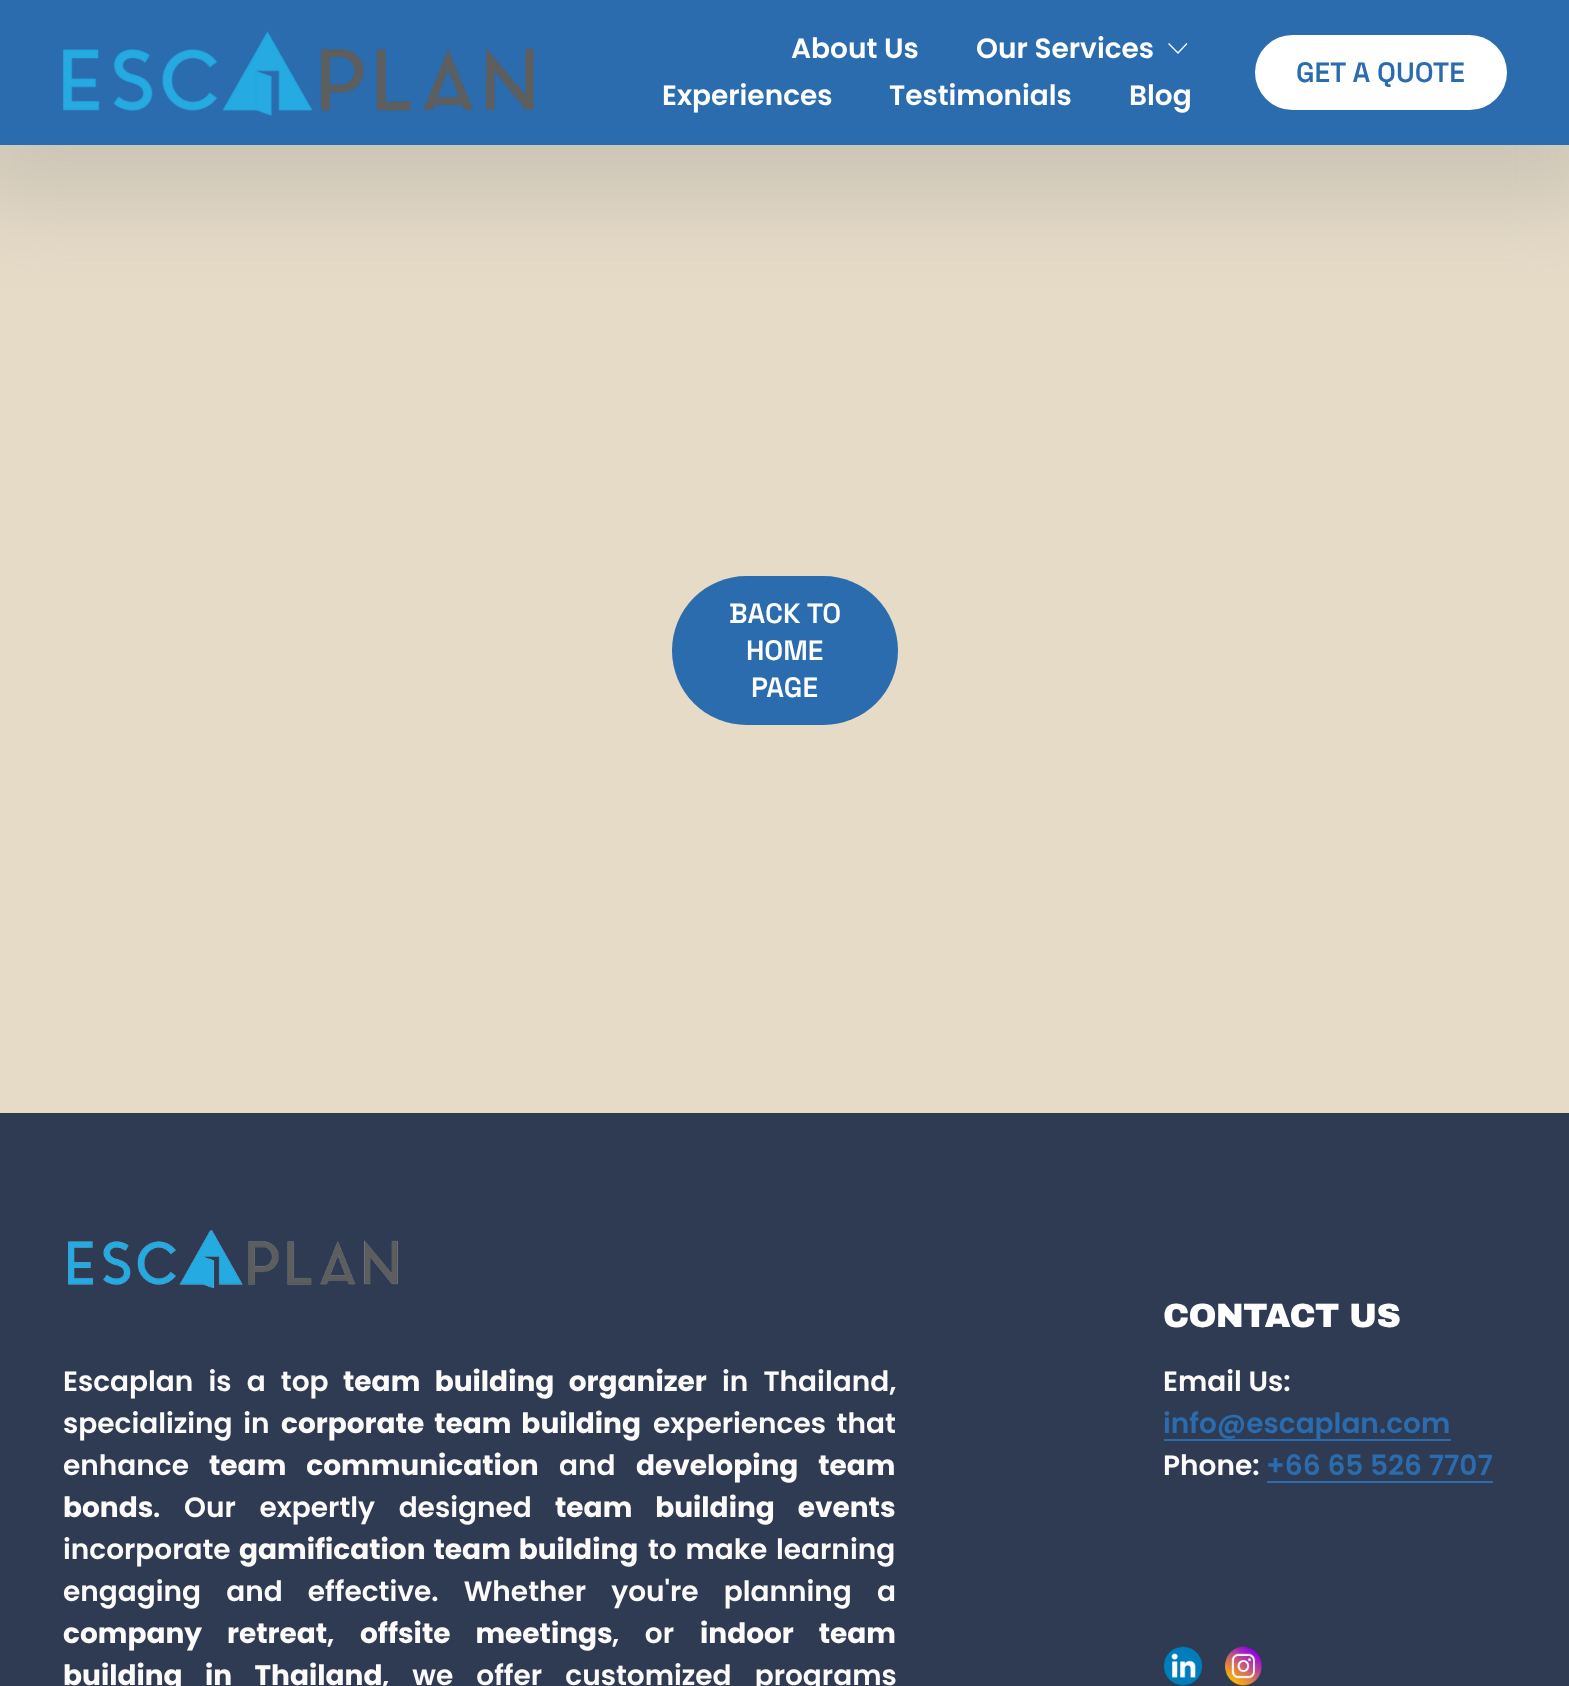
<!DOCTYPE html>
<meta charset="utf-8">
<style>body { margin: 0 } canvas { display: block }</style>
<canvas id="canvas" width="1569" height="1686"></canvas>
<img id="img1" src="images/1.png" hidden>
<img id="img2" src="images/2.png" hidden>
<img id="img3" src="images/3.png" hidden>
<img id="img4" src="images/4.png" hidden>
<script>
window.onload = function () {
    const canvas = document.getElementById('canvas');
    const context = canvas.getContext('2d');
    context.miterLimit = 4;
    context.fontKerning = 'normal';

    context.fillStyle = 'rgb(230, 219, 199)';
    context.fillRect(0, 0, 1569, 1686);
    context.fillStyle = 'rgb(43, 108, 174)';
    context.fillRect(0, 0, 1569, 145);
    context.save();
    context.beginPath();
    context.rect(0, 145, 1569, 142);
    context.clip();
    context.fillStyle = 'rgb(203, 196, 182)';
    context.filter = 'blur(42px)';
    context.beginPath();
    context.rect(-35, -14, 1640, 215);
    context.fill();
    context.filter = 'none';
    context.restore();
    context.drawImage(document.getElementById('img1'), 63, 31, 471, 85);
    context.beginPath();
    context.moveTo(1186.5, 44);
    context.lineTo(1178, 53);
    context.lineTo(1169, 44);
    context.strokeStyle = 'rgb(255, 255, 255)';
    context.lineWidth = 1.3;
    context.lineCap = 'square';
    context.stroke();
    context.fillStyle = 'rgb(255, 255, 255)';
    context.beginPath();
    context.roundRect(1255, 35, 252, 75, 37.5);
    context.fill();
    context.fillStyle = 'rgb(43, 108, 174)';
    context.beginPath();
    context.roundRect(672, 576, 226, 149, 74.5);
    context.fill();
    context.fillStyle = 'rgb(46, 59, 83)';
    context.fillRect(0, 1113, 1569, 573);
    context.drawImage(document.getElementById('img2'), 68, 1230, 330, 59);
    context.fillStyle = 'rgb(43, 108, 174)';
    context.fillRect(1164, 1439, 287, 2);
    context.fillRect(1267, 1481, 226, 2);
    context.drawImage(document.getElementById('img3'), 1163, 1646, 40, 40);
    context.drawImage(document.getElementById('img4'), 1225, 1646, 37, 40);
    context.font = '600 28px Poppins';
    context.fillStyle = 'rgb(255, 255, 255)';
    context.fillText('About Us', 791, 58);
    context.fillText('Our Services', 976, 58);
    context.fillText('Experiences', 662, 105);
    context.fillText('Testimonials', 889, 105);
    context.fillText('Blog', 1129, 105);
    context.font = '600 28px Space Grotesk';
    context.fillStyle = 'rgb(43, 108, 174)';
    context.fillText('GET A QUOTE', 1296, 82);
    context.fillStyle = 'rgb(255, 255, 255)';
    context.fillText('BACK TO', 729, 623);
    context.fillText('HOME', 746, 660);
    context.fillText('PAGE', 751, 697);
    context.letterSpacing = '-0.75px';
    context.font = '900 33.75px Archivo Black';
    context.fillText('CONTACT US', 1163, 1327);
    context.letterSpacing = '0px';
    context.wordSpacing = '8.5px';
    context.font = '600 28px Poppins';
    context.fillStyle = 'rgb(252, 251, 249)';
    context.fillText('Escaplan is a top', 63, 1391);
    context.font = 'bold 28px Poppins';
    context.fillText('team building organizer', 343, 1391);
    context.font = '600 28px Poppins';
    context.fillText('in Thailand,', 722, 1391);
    context.wordSpacing = '4px';
    context.fillText('specializing in', 63, 1433);
    context.font = 'bold 28px Poppins';
    context.fillText('corporate team building', 281, 1433);
    context.font = '600 28px Poppins';
    context.fillText('experiences that', 653, 1433);
    context.wordSpacing = '0px';
    context.fillText('enhance', 63, 1475);
    context.wordSpacing = '14px';
    context.font = 'bold 28px Poppins';
    context.fillText('team communication', 209, 1475);
    context.wordSpacing = '0px';
    context.font = '600 28px Poppins';
    context.fillText('and', 559, 1475);
    context.wordSpacing = '14px';
    context.font = 'bold 28px Poppins';
    context.fillText('developing team', 636, 1475);
    context.wordSpacing = '0px';
    context.fillText('bonds', 63, 1517);
    context.wordSpacing = '17px';
    context.font = '600 28px Poppins';
    context.fillText('. Our expertly designed', 153, 1517);
    context.font = 'bold 28px Poppins';
    context.fillText('team building events', 555, 1517);
    context.wordSpacing = '0px';
    context.font = '600 28px Poppins';
    context.fillText('incorporate', 63, 1559);
    context.wordSpacing = '2px';
    context.font = 'bold 28px Poppins';
    context.fillText('gamification team building', 239, 1559);
    context.font = '600 28px Poppins';
    context.fillText('to make learning', 648, 1559);
    context.wordSpacing = '18.5px';
    context.fillText('engaging and effective. Whether you\'re planning a', 63, 1601);
    context.wordSpacing = '19px';
    context.font = 'bold 28px Poppins';
    context.fillText('company retreat', 63, 1643);
    context.wordSpacing = '0px';
    context.font = '600 28px Poppins';
    context.fillText(',', 327, 1643);
    context.wordSpacing = '19px';
    context.font = 'bold 28px Poppins';
    context.fillText('offsite meetings', 360, 1643);
    context.font = '600 28px Poppins';
    context.fillText(', or', 612, 1643);
    context.font = 'bold 28px Poppins';
    context.fillText('indoor team', 700, 1643);
    context.wordSpacing = '16.5px';
    context.fillText('building in Thailand', 63, 1685);
    context.font = '600 28px Poppins';
    context.fillText(', we offer customized programs', 382, 1685);
    context.wordSpacing = '0px';
    context.fillText('Email Us:', 1163, 1391);
    context.fillStyle = 'rgb(43, 108, 174)';
    context.fillText('info@escaplan.com', 1163, 1433);
    context.fillStyle = 'rgb(252, 251, 249)';
    context.fillText('Phone:', 1163, 1475);
    context.fillStyle = 'rgb(43, 108, 174)';
    context.fillText('+66 65 526 7707', 1266, 1475);
};
</script>
